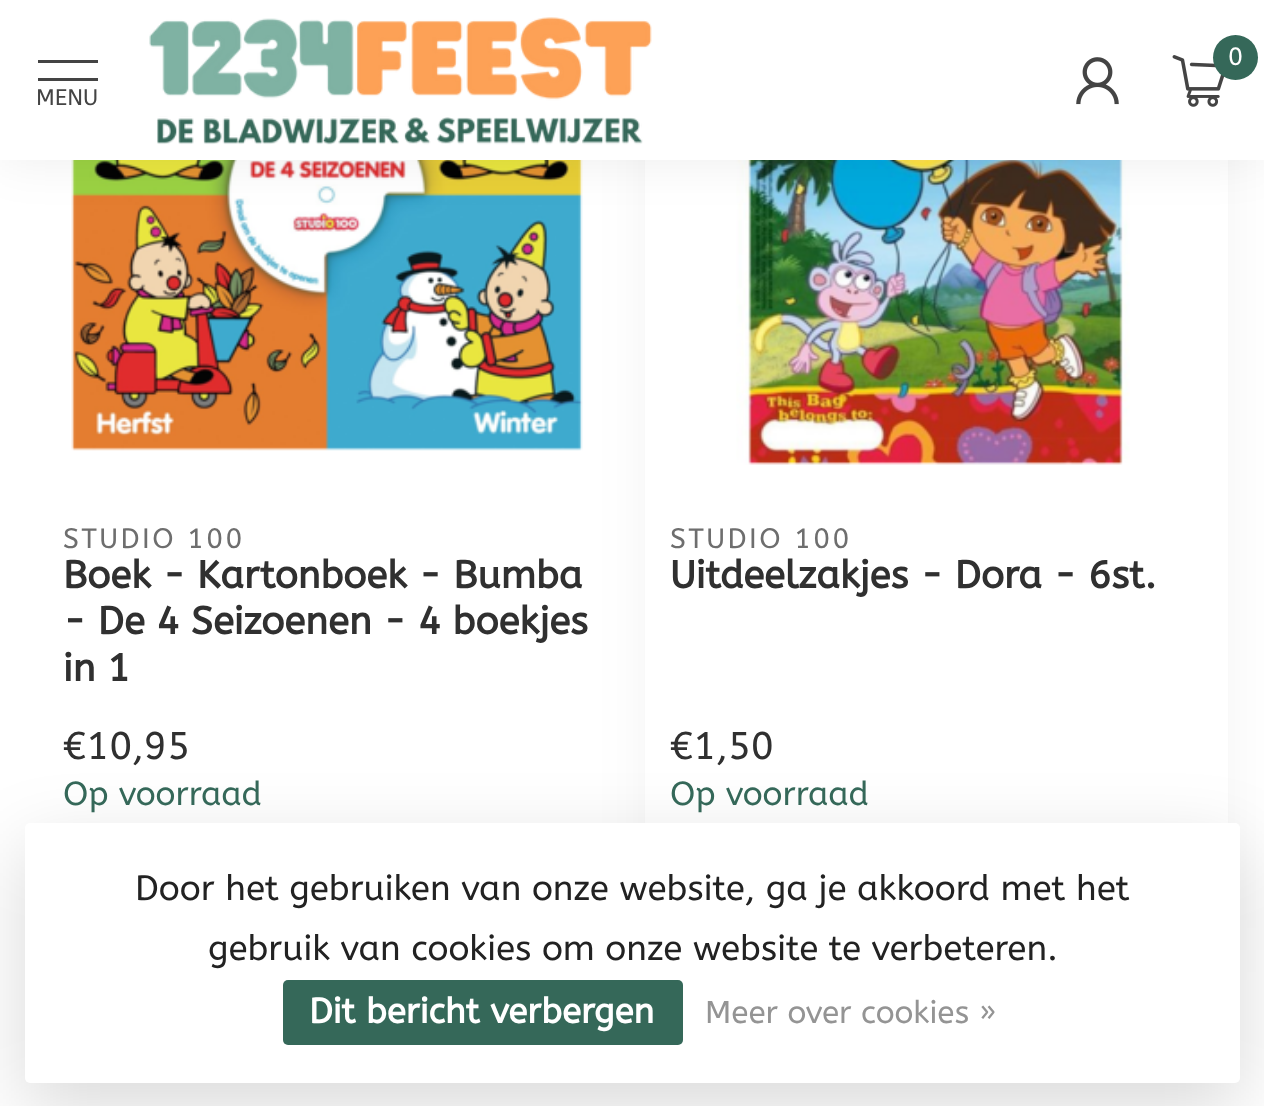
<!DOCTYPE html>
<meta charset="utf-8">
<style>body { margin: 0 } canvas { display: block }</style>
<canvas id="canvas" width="1264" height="1106"></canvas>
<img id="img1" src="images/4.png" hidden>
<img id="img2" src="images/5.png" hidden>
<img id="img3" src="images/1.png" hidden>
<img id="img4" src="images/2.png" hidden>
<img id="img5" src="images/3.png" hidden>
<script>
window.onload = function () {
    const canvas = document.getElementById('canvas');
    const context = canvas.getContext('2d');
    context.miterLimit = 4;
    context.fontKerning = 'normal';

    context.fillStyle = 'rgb(255, 255, 255)';
    context.fillRect(0, 0, 1264, 1106);
    context.drawImage(document.getElementById('img1'), 71, 160, 512, 291);
    context.fillStyle = 'rgba(0, 0, 0, 0.07)';
    context.filter = 'blur(32.5px)';
    context.beginPath();
    context.rect(660, -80, 553, 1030);
    context.fill();
    context.filter = 'none';
    context.fillStyle = 'rgb(255, 255, 255)';
    context.fillRect(645, 160, 583, 663);
    context.drawImage(document.getElementById('img2'), 736, 160, 394, 305);
    context.fillStyle = 'rgba(0, 0, 0, 0.07)';
    context.filter = 'blur(25px)';
    context.beginPath();
    context.rect(0, 0, 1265, 160);
    context.fill();
    context.filter = 'none';
    context.fillStyle = 'rgb(255, 255, 255)';
    context.fillRect(0, 0, 1264, 160);
    context.drawImage(document.getElementById('img3'), 1076, 57, 43, 48);
    context.drawImage(document.getElementById('img4'), 1172, 55, 53, 52);
    context.fillStyle = 'rgb(53, 104, 89)';
    context.beginPath();
    context.arc(1235.5, 57.5, 22.5, 0, 2 * Math.PI);
    context.fill();
    context.fillStyle = 'rgb(68, 68, 68)';
    context.fillRect(38, 60, 60, 3);
    context.fillRect(38, 78, 60, 3);
    context.drawImage(document.getElementById('img5'), 149, 17, 503, 128);
    context.fillStyle = 'rgba(0, 0, 0, 0.15)';
    context.filter = 'blur(37.5px)';
    context.beginPath();
    context.roundRect(25, 848, 1215, 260, 5);
    context.fill();
    context.filter = 'none';
    context.fillStyle = 'rgb(255, 255, 255)';
    context.beginPath();
    context.roundRect(25, 823, 1215, 260, 5);
    context.fill();
    context.fillStyle = 'rgb(53, 104, 89)';
    context.beginPath();
    context.roundRect(283, 980, 400, 65, 5);
    context.fill();
    context.font = '25px ABeeZee';
    context.fillStyle = 'rgb(255, 255, 255)';
    context.fillText('0', 1228, 65);
    context.font = '22.5px ABeeZee';
    context.fillStyle = 'rgb(68, 68, 68)';
    context.fillText('MENU', 36, 105);
    context.letterSpacing = '2.5px';
    context.font = '28px ABeeZee';
    context.fillStyle = 'rgb(110, 110, 110)';
    context.fillText('STUDIO 100', 63, 548);
    context.letterSpacing = '0px';
    context.font = 'bold 38.5px ABeeZee';
    context.fillStyle = 'rgb(48, 48, 48)';
    context.fillText('Boek - Kartonboek - Bumba', 63, 588);
    context.fillText('- De 4 Seizoenen - 4 boekjes', 63, 634);
    context.fillText('in 1', 63, 681);
    context.font = '38.5px ABeeZee';
    context.fillText('€10,95', 63, 759);
    context.font = '33.25px ABeeZee';
    context.fillStyle = 'rgb(53, 104, 89)';
    context.fillText('Op voorraad', 63, 805);
    context.letterSpacing = '2.5px';
    context.font = '28px ABeeZee';
    context.fillStyle = 'rgb(110, 110, 110)';
    context.fillText('STUDIO 100', 670, 548);
    context.letterSpacing = '0px';
    context.font = 'bold 38.5px ABeeZee';
    context.fillStyle = 'rgb(48, 48, 48)';
    context.fillText('Uitdeelzakjes - Dora - 6st.', 670, 588);
    context.font = '38.5px ABeeZee';
    context.fillText('€1,50', 670, 759);
    context.font = '33.25px ABeeZee';
    context.fillStyle = 'rgb(53, 104, 89)';
    context.fillText('Op voorraad', 670, 805);
    context.font = '35px ABeeZee';
    context.fillStyle = 'rgb(34, 34, 34)';
    context.fillText('Door het gebruiken van onze website, ga je akkoord met het', 135, 900);
    context.fillText('gebruik van cookies om onze website te verbeteren.', 208, 960);
    context.font = 'bold 35px ABeeZee';
    context.fillStyle = 'rgb(255, 255, 255)';
    context.fillText('Dit bericht verbergen', 309, 1023);
    context.font = '31.5px ABeeZee';
    context.fillStyle = 'rgb(148, 148, 148)';
    context.fillText('Meer over cookies »', 705, 1023);
};
</script>
